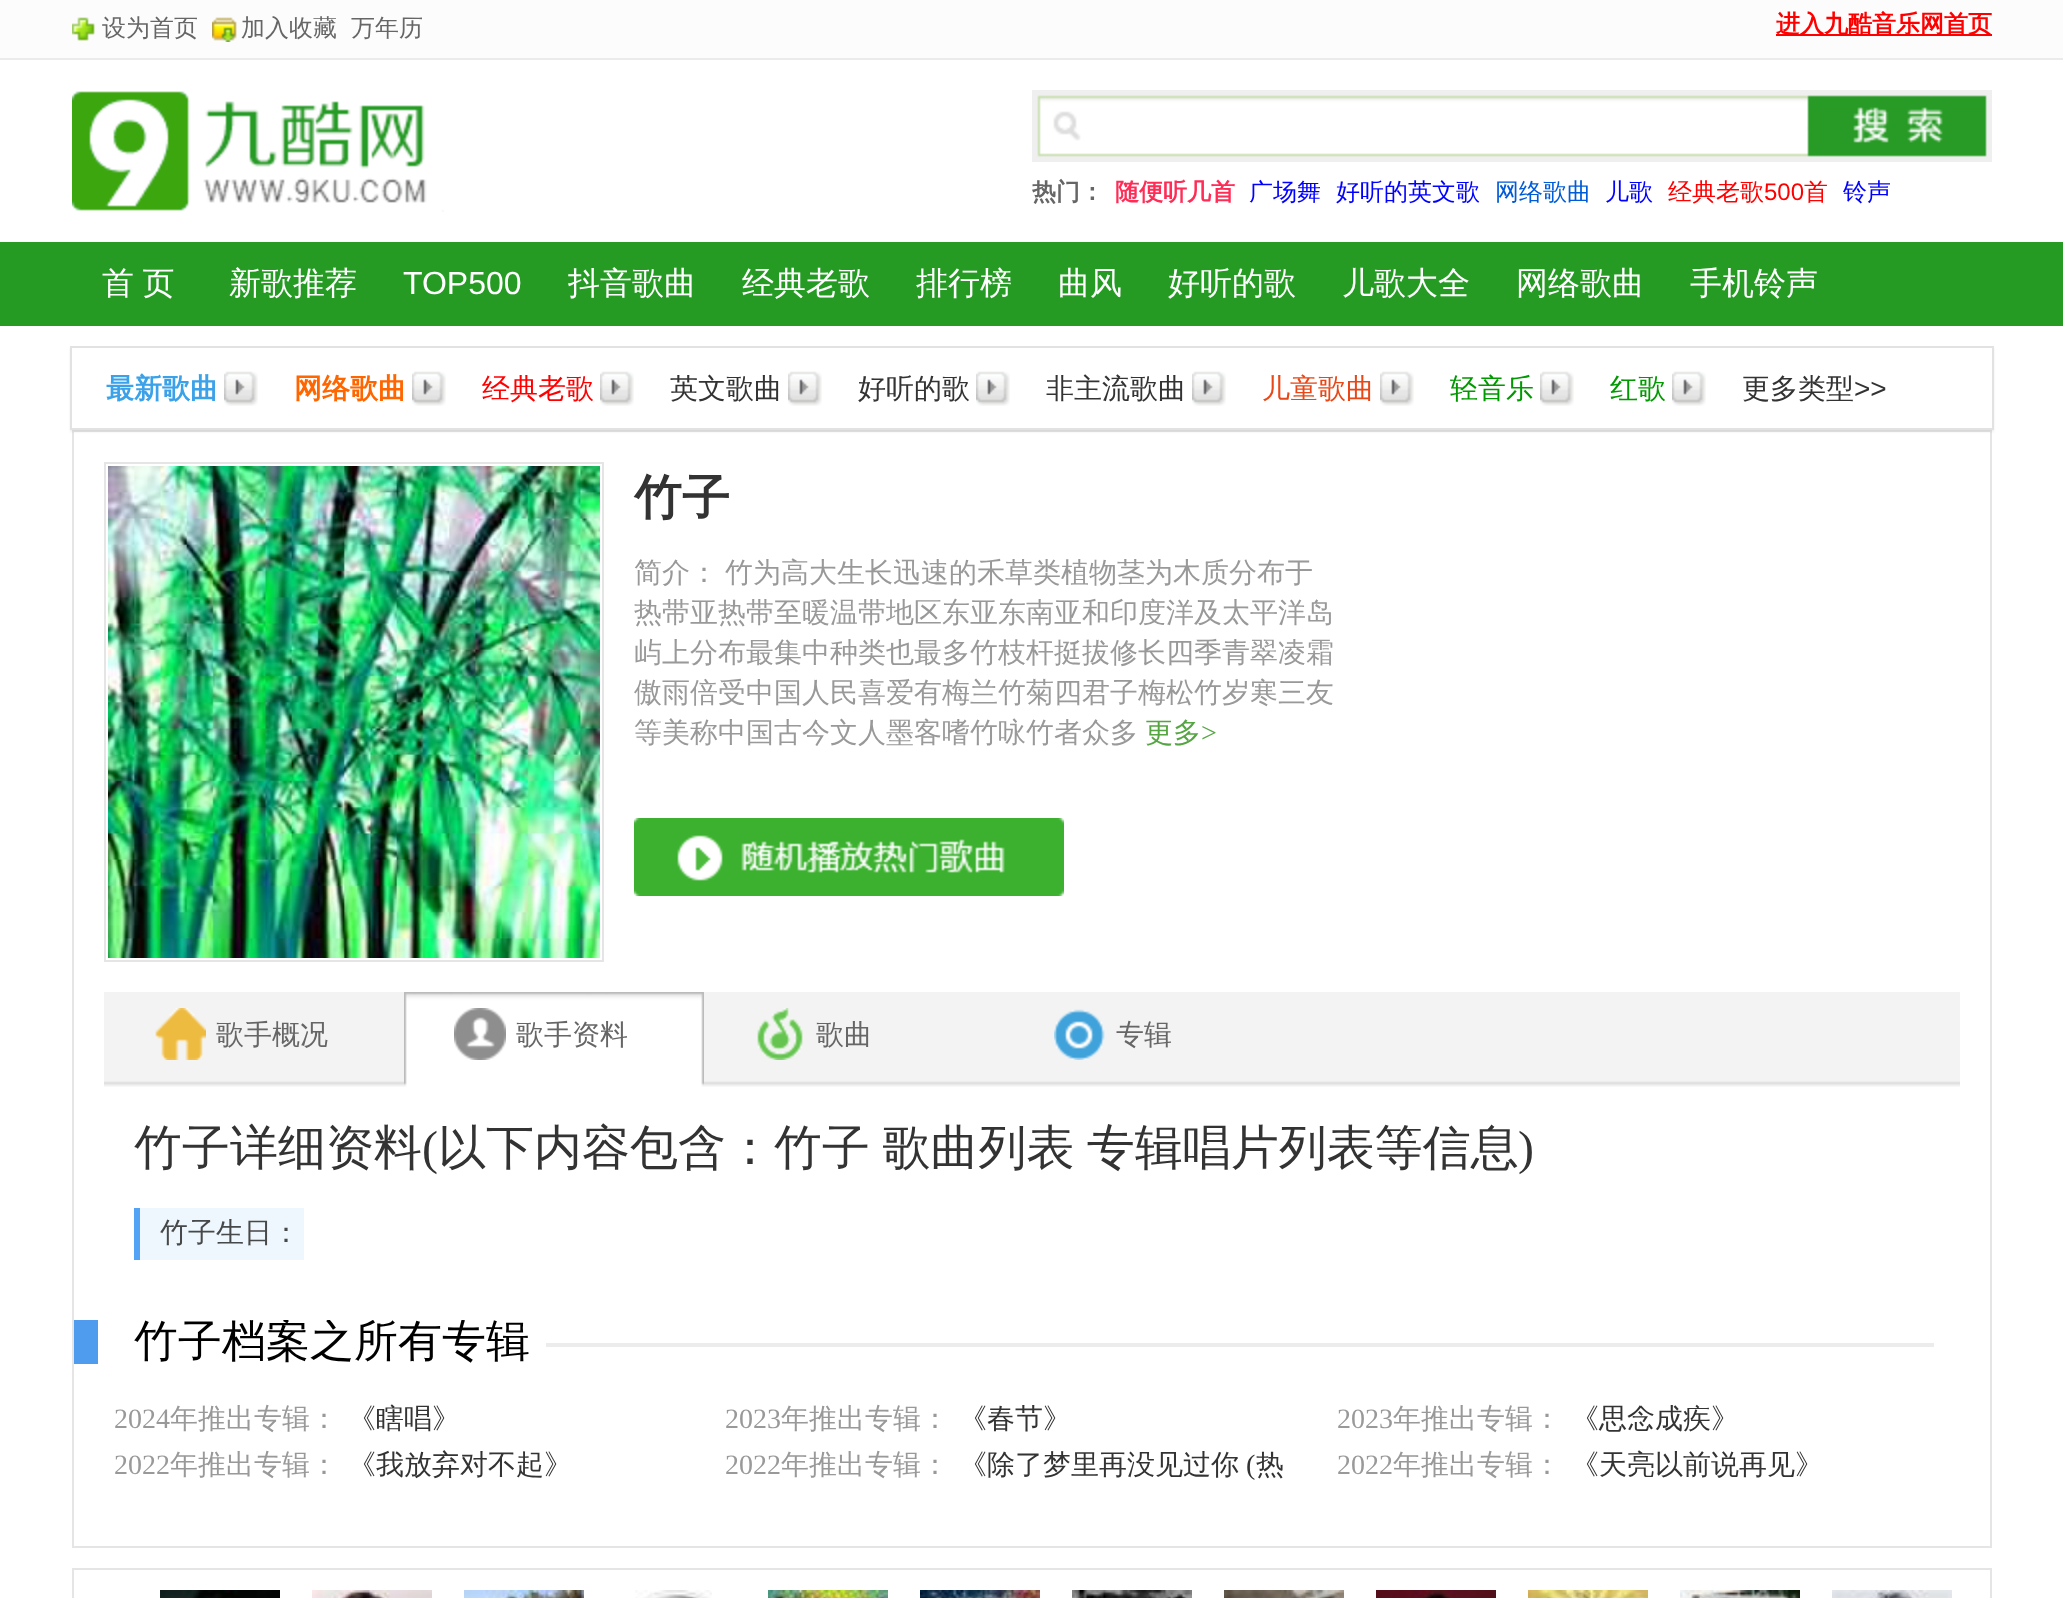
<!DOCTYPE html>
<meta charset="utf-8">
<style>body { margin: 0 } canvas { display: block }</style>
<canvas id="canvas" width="2063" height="1598"></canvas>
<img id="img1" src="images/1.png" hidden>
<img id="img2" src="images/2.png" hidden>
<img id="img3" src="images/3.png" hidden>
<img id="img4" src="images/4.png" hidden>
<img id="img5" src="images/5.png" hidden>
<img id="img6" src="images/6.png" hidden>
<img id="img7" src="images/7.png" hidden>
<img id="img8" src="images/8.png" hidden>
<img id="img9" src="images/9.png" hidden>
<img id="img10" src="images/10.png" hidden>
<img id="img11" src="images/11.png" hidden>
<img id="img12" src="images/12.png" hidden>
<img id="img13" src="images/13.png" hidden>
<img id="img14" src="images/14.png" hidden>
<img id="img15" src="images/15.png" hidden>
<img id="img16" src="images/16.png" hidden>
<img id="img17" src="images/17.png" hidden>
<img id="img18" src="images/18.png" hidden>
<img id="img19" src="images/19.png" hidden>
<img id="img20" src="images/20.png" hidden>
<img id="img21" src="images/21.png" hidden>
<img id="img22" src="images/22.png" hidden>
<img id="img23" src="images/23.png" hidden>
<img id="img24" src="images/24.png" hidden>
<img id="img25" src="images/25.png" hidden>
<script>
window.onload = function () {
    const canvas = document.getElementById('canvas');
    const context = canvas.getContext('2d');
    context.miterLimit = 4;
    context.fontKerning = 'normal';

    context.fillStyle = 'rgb(255, 255, 255)';
    context.fillRect(0, 0, 2063, 1598);
    context.fillStyle = 'rgb(252, 252, 252)';
    context.fillRect(0, 0, 2063, 58);
    context.fillStyle = 'rgb(235, 235, 235)';
    context.fillRect(0, 58, 2063, 2);
    context.drawImage(document.getElementById('img1'), 72, 17, 23, 24);
    context.drawImage(document.getElementById('img2'), 212, 17, 25, 25);
    context.fillStyle = 'rgb(255, 0, 0)';
    context.fillRect(1776, 34, 216, 2);
    context.drawImage(document.getElementById('img3'), 72, 91, 372, 121);
    context.drawImage(document.getElementById('img4'), 1032, 90, 960, 72);
    context.fillStyle = 'rgb(37, 155, 36)';
    context.fillRect(0, 242, 2063, 84);
    context.strokeStyle = 'rgb(229, 229, 229)';
    context.lineWidth = 2;
    context.strokeRect(73, 431, 1918, 1116);
    context.save();
    context.beginPath();
    context.moveTo(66, 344);
    context.lineTo(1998, 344);
    context.lineTo(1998, 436);
    context.lineTo(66, 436);
    context.closePath();
    context.moveTo(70, 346);
    context.lineTo(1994, 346);
    context.lineTo(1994, 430);
    context.lineTo(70, 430);
    context.closePath();
    context.clip('evenodd');
    context.fillStyle = 'rgba(97, 97, 97, 0.1)';
    context.filter = 'blur(1px)';
    context.beginPath();
    context.rect(70, 348, 1924, 84);
    context.fill();
    context.filter = 'none';
    context.restore();
    context.strokeStyle = 'rgb(226, 226, 226)';
    context.strokeRect(71, 347, 1922, 82);
    context.drawImage(document.getElementById('img5'), 224, 371, 34, 35);
    context.drawImage(document.getElementById('img5'), 412, 371, 34, 35);
    context.drawImage(document.getElementById('img5'), 600, 371, 34, 35);
    context.drawImage(document.getElementById('img5'), 788, 371, 34, 35);
    context.drawImage(document.getElementById('img5'), 976, 371, 34, 35);
    context.drawImage(document.getElementById('img5'), 1192, 371, 34, 35);
    context.drawImage(document.getElementById('img5'), 1380, 371, 34, 35);
    context.drawImage(document.getElementById('img5'), 1540, 371, 34, 35);
    context.drawImage(document.getElementById('img5'), 1672, 371, 34, 35);
    context.strokeStyle = 'rgb(229, 229, 229)';
    context.strokeRect(105, 463, 498, 498);
    context.drawImage(document.getElementById('img6'), 108, 466, 492, 492);
    context.drawImage(document.getElementById('img7'), 634, 818, 430, 78);
    context.drawImage(document.getElementById('img8'), 104, 992, 1856, 95);
    context.drawImage(document.getElementById('img9'), 155, 1008, 51, 52);
    context.drawImage(document.getElementById('img10'), 404, 992, 300, 95);
    context.drawImage(document.getElementById('img11'), 454, 1008, 52, 52);
    context.drawImage(document.getElementById('img12'), 757, 1008, 46, 52);
    context.drawImage(document.getElementById('img13'), 1054, 1009, 51, 51);
    context.fillStyle = 'rgb(238, 247, 253)';
    context.fillRect(140, 1208, 164, 52);
    context.fillStyle = 'rgb(82, 163, 245)';
    context.fillRect(134, 1208, 6, 52);
    context.fillStyle = 'rgb(236, 236, 236)';
    context.fillRect(546, 1343, 1388, 4);
    context.fillStyle = 'rgb(79, 156, 238)';
    context.fillRect(74, 1320, 24, 44);
    context.strokeRect(73, 1569, 1918, 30);
    context.drawImage(document.getElementById('img14'), 160, 1590, 120, 8);
    context.drawImage(document.getElementById('img15'), 312, 1590, 120, 8);
    context.drawImage(document.getElementById('img16'), 464, 1590, 120, 8);
    context.drawImage(document.getElementById('img17'), 635, 1590, 77, 8);
    context.drawImage(document.getElementById('img18'), 768, 1590, 120, 8);
    context.drawImage(document.getElementById('img19'), 920, 1590, 120, 8);
    context.drawImage(document.getElementById('img20'), 1072, 1590, 120, 8);
    context.drawImage(document.getElementById('img21'), 1224, 1590, 120, 8);
    context.drawImage(document.getElementById('img22'), 1376, 1590, 120, 8);
    context.drawImage(document.getElementById('img23'), 1528, 1590, 120, 8);
    context.drawImage(document.getElementById('img24'), 1680, 1590, 120, 8);
    context.drawImage(document.getElementById('img25'), 1832, 1590, 120, 8);
    context.font = '500 24px WenQuanYi Zen Hei';
    context.fillStyle = 'rgb(102, 102, 102)';
    context.fillText('设为首页', 102, 36);
    context.fillText('加入收藏', 241, 36);
    context.fillText('万年历', 351, 36);
    context.font = 'bold 24px WenQuanYi Zen Hei';
    context.fillStyle = 'rgb(255, 0, 0)';
    context.fillText('进入九酷音乐网首页', 1776, 32);
    context.fillStyle = 'rgb(102, 102, 102)';
    context.fillText('热门：', 1032, 200);
    context.fillStyle = 'rgb(255, 44, 86)';
    context.fillText('随便听几首', 1115, 200);
    context.font = '500 24px WenQuanYi Zen Hei';
    context.fillStyle = 'rgb(0, 0, 255)';
    context.fillText('广场舞', 1249, 200);
    context.fillText('好听的英文歌', 1336, 200);
    context.fillStyle = 'rgb(0, 91, 216)';
    context.fillText('网络歌曲', 1495, 200);
    context.fillStyle = 'rgb(0, 0, 255)';
    context.fillText('儿歌', 1605, 200);
    context.fillStyle = 'rgb(255, 0, 0)';
    context.fillText('经典老歌', 1668, 200);
    context.font = '24px Liberation Sans';
    context.fillText('500', 1764, 200);
    context.font = '500 24px WenQuanYi Zen Hei';
    context.fillText('首', 1804, 200);
    context.fillStyle = 'rgb(0, 0, 255)';
    context.fillText('铃声', 1843, 200);
    context.wordSpacing = '-1px';
    context.font = '500 32px WenQuanYi Zen Hei';
    context.fillStyle = 'rgb(255, 255, 255)';
    context.fillText('首 页', 102, 294);
    context.wordSpacing = '0px';
    context.fillText('新歌推荐', 229, 294);
    context.font = '32px Liberation Sans';
    context.fillText('TOP500', 403, 294);
    context.font = '500 32px WenQuanYi Zen Hei';
    context.fillText('抖音歌曲', 568, 294);
    context.fillText('经典老歌', 742, 294);
    context.fillText('排行榜', 916, 294);
    context.fillText('曲风', 1058, 294);
    context.fillText('好听的歌', 1168, 294);
    context.fillText('儿歌大全', 1342, 294);
    context.fillText('网络歌曲', 1516, 294);
    context.fillText('手机铃声', 1690, 294);
    context.font = 'bold 28px WenQuanYi Zen Hei';
    context.fillStyle = 'rgb(59, 161, 232)';
    context.fillText('最新歌曲', 106, 398);
    context.fillStyle = 'rgb(255, 102, 0)';
    context.fillText('网络歌曲', 294, 398);
    context.font = '500 28px WenQuanYi Zen Hei';
    context.fillStyle = 'rgb(255, 0, 0)';
    context.fillText('经典老歌', 482, 398);
    context.fillStyle = 'rgb(51, 51, 51)';
    context.fillText('英文歌曲', 670, 398);
    context.fillText('好听的歌', 858, 398);
    context.fillText('非主流歌曲', 1046, 398);
    context.fillStyle = 'rgb(232, 72, 23)';
    context.fillText('儿童歌曲', 1262, 398);
    context.fillStyle = 'rgb(0, 153, 0)';
    context.fillText('轻音乐', 1450, 398);
    context.fillText('红歌', 1610, 398);
    context.fillStyle = 'rgb(51, 51, 51)';
    context.fillText('更多类型', 1742, 398);
    context.font = '28px Liberation Sans';
    context.fillText('>>', 1854, 398);
    context.font = 'bold 48px WenQuanYi Zen Hei';
    context.fillText('竹子', 634, 514);
    context.font = '500 28px WenQuanYi Zen Hei';
    context.fillStyle = 'rgb(153, 153, 153)';
    context.fillText('简介：', 634, 582);
    context.fillText('竹为高大生长迅速的禾草类植物茎为木质分布于', 725, 582);
    context.fillText('热带亚热带至暖温带地区东亚东南亚和印度洋及太平洋岛', 634, 622);
    context.fillText('屿上分布最集中种类也最多竹枝杆挺拔修长四季青翠凌霜', 634, 662);
    context.fillText('傲雨倍受中国人民喜爱有梅兰竹菊四君子梅松竹岁寒三友', 634, 702);
    context.fillText('等美称中国古今文人墨客嗜竹咏竹者众多', 634, 742);
    context.fillStyle = 'rgb(85, 166, 66)';
    context.fillText('更多', 1145, 742);
    context.font = '28px Liberation Serif';
    context.fillText('>', 1201, 742);
    context.font = '500 28px WenQuanYi Zen Hei';
    context.fillStyle = 'rgb(102, 102, 102)';
    context.fillText('歌手概况', 216, 1044);
    context.fillText('歌手资料', 516, 1044);
    context.fillText('歌曲', 816, 1044);
    context.fillText('专辑', 1116, 1044);
    context.font = '500 48px WenQuanYi Zen Hei';
    context.fillStyle = 'rgb(51, 51, 51)';
    context.fillText('竹子详细资料', 134, 1164);
    context.font = '48px Liberation Serif';
    context.fillText('(', 422, 1164);
    context.wordSpacing = '-2px';
    context.font = '500 48px WenQuanYi Zen Hei';
    context.fillText('以下内容包含：竹子 歌曲列表 专辑唱片列表等信息', 438, 1164);
    context.wordSpacing = '0px';
    context.font = '48px Liberation Serif';
    context.fillText(')', 1518, 1164);
    context.font = '500 28px WenQuanYi Zen Hei';
    context.fillStyle = 'rgb(71, 72, 73)';
    context.fillText('竹子生日：', 160, 1242);
    context.save();
    context.beginPath();
    context.rect(98, 1320, 1836, 44);
    context.clip();
    context.font = '500 44px WenQuanYi Zen Hei';
    context.fillStyle = 'rgb(0, 0, 0)';
    context.fillText('竹子档案之所有专辑', 134, 1356);
    context.restore();
    context.font = '28px Liberation Serif';
    context.fillStyle = 'rgb(153, 153, 153)';
    context.fillText('2024', 114, 1428);
    context.font = '500 28px WenQuanYi Zen Hei';
    context.fillText('年推出专辑：', 170, 1428);
    context.fillStyle = 'rgb(51, 51, 51)';
    context.fillText('《瞎唱》', 348, 1428);
    context.font = '28px Liberation Serif';
    context.fillStyle = 'rgb(153, 153, 153)';
    context.fillText('2023', 725, 1428);
    context.font = '500 28px WenQuanYi Zen Hei';
    context.fillText('年推出专辑：', 781, 1428);
    context.fillStyle = 'rgb(51, 51, 51)';
    context.fillText('《春节》', 959, 1428);
    context.font = '28px Liberation Serif';
    context.fillStyle = 'rgb(153, 153, 153)';
    context.fillText('2023', 1337, 1428);
    context.font = '500 28px WenQuanYi Zen Hei';
    context.fillText('年推出专辑：', 1393, 1428);
    context.fillStyle = 'rgb(51, 51, 51)';
    context.fillText('《思念成疾》', 1571, 1428);
    context.font = '28px Liberation Serif';
    context.fillStyle = 'rgb(153, 153, 153)';
    context.fillText('2022', 114, 1474);
    context.font = '500 28px WenQuanYi Zen Hei';
    context.fillText('年推出专辑：', 170, 1474);
    context.fillStyle = 'rgb(51, 51, 51)';
    context.fillText('《我放弃对不起》', 348, 1474);
    context.font = '28px Liberation Serif';
    context.fillStyle = 'rgb(153, 153, 153)';
    context.fillText('2022', 725, 1474);
    context.font = '500 28px WenQuanYi Zen Hei';
    context.fillText('年推出专辑：', 781, 1474);
    context.fillStyle = 'rgb(51, 51, 51)';
    context.fillText('《除了梦里再没见过你', 959, 1474);
    context.font = '28px Liberation Serif';
    context.fillText('(', 1246, 1474);
    context.font = '500 28px WenQuanYi Zen Hei';
    context.fillText('热', 1256, 1474);
    context.font = '28px Liberation Serif';
    context.fillStyle = 'rgb(153, 153, 153)';
    context.fillText('2022', 1337, 1474);
    context.font = '500 28px WenQuanYi Zen Hei';
    context.fillText('年推出专辑：', 1393, 1474);
    context.fillStyle = 'rgb(51, 51, 51)';
    context.fillText('《天亮以前说再见》', 1571, 1474);
};
</script>
